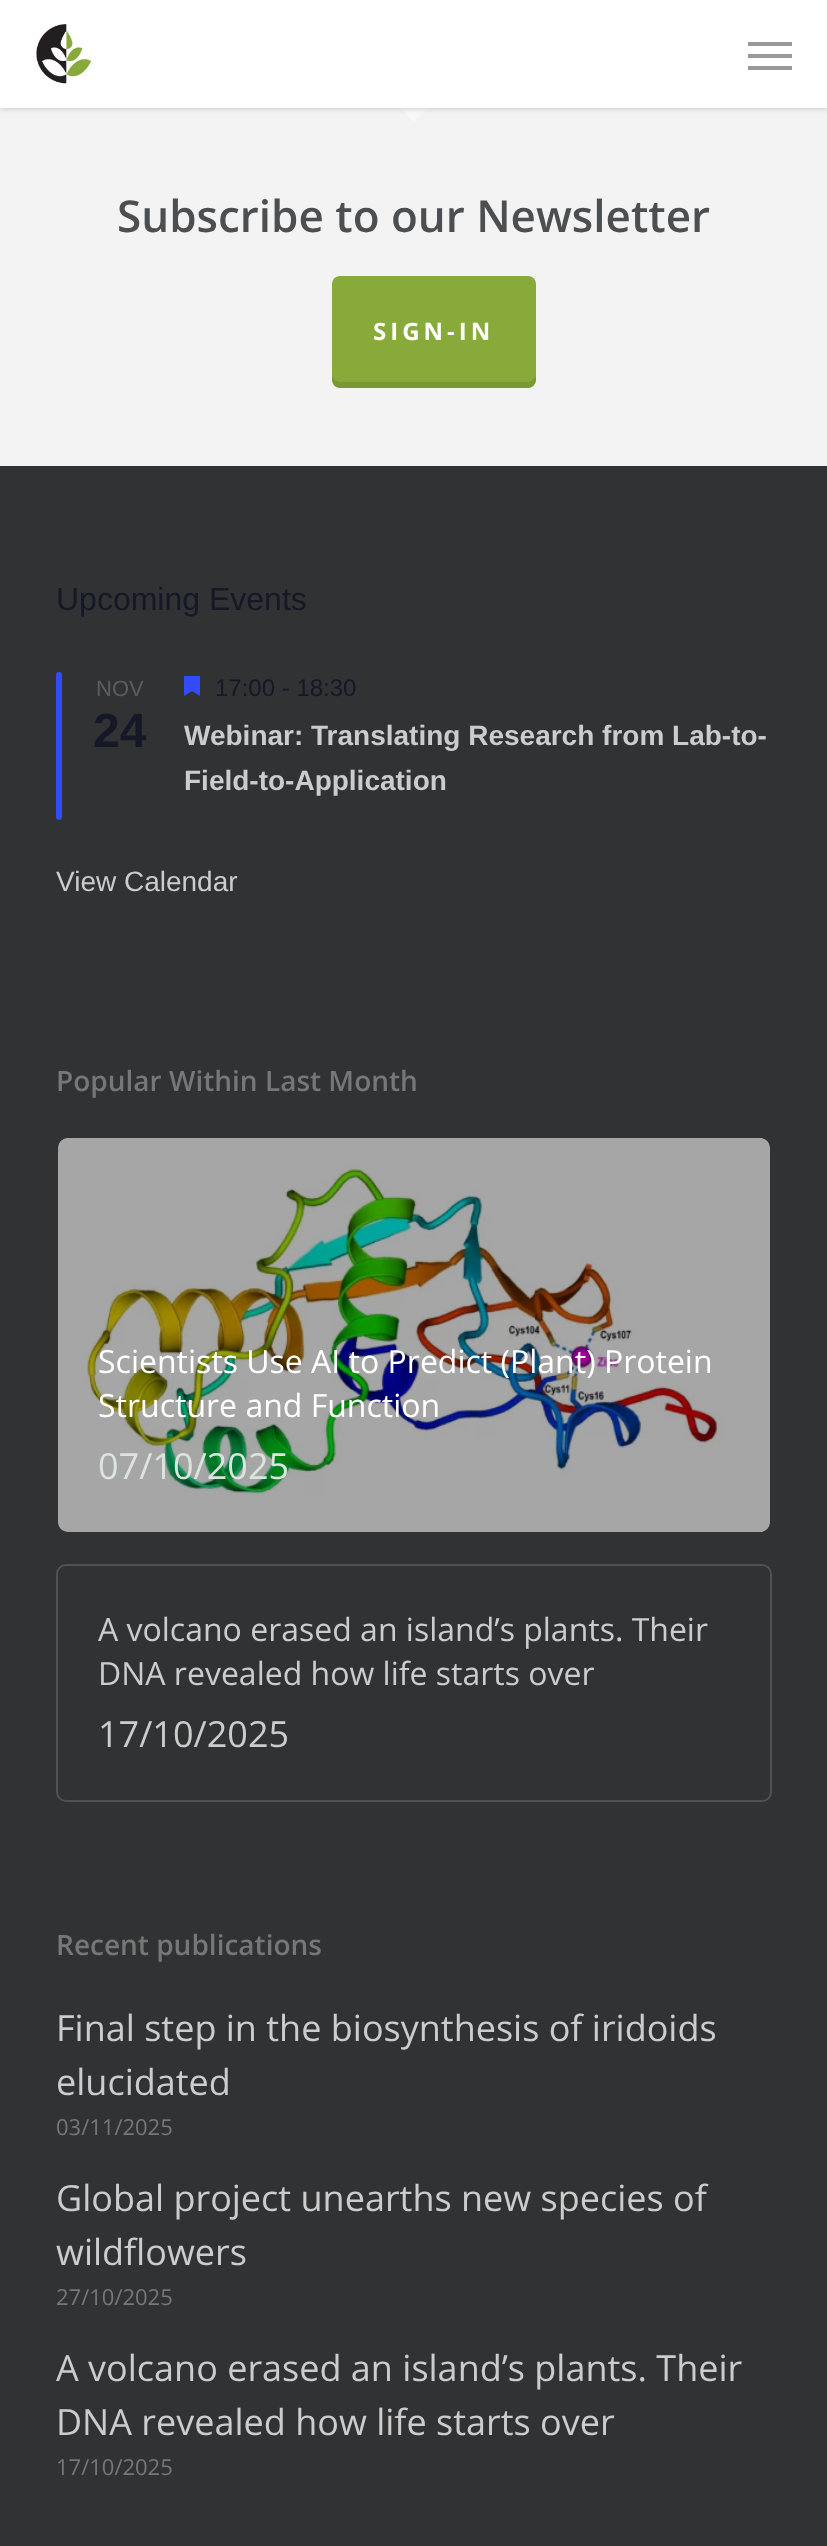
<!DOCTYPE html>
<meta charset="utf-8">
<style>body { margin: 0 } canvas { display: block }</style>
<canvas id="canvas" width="827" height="2546"></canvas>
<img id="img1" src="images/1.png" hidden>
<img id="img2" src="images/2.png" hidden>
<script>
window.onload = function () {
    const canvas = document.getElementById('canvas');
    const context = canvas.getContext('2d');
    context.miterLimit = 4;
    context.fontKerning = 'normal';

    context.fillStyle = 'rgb(49, 50, 51)';
    context.fillRect(0, 0, 827, 2546);
    context.fillStyle = 'rgb(243, 243, 243)';
    context.fillRect(0, 108, 827, 358);
    context.fillStyle = 'rgb(248, 248, 248)';
    context.beginPath();
    context.moveTo(394, 102);
    context.lineTo(434, 102);
    context.lineTo(414, 122);
    context.closePath();
    context.fill();
    context.fillStyle = 'rgba(0, 0, 0, 0.22)';
    context.filter = 'blur(3px)';
    context.beginPath();
    context.rect(0, 0, 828, 108);
    context.fill();
    context.filter = 'none';
    context.fillStyle = 'rgb(255, 255, 255)';
    context.fillRect(0, 0, 827, 108);
    context.drawImage(document.getElementById('img1'), 36, 24, 56, 60);
    context.fillStyle = 'rgb(153, 153, 153)';
    context.fillRect(748, 42, 44, 4);
    context.fillRect(748, 66, 44, 4);
    context.fillRect(748, 54, 44, 4);
    context.fillStyle = 'rgb(136, 170, 58)';
    context.beginPath();
    context.roundRect(332, 276, 204, 112, 8);
    context.fill();
    context.fillStyle = 'rgba(0, 0, 0, 0.1)';
    context.beginPath();
    context.moveTo(332, 374);
    context.lineTo(332, 380);
    context.bezierCurveTo(332, 384, 336, 388, 340, 388);
    context.lineTo(528, 388);
    context.bezierCurveTo(532, 388, 536, 384, 536, 380);
    context.lineTo(536, 374);
    context.bezierCurveTo(536, 378, 532, 382, 528, 382);
    context.lineTo(340, 382);
    context.bezierCurveTo(336, 382, 332, 378, 332, 374);
    context.closePath();
    context.fill();
    context.fillStyle = 'rgb(51, 74, 255)';
    context.beginPath();
    context.roundRect(56, 672, 6, 148, 3);
    context.fill();
    context.beginPath();
    context.moveTo(184, 676);
    context.lineTo(200, 676);
    context.lineTo(200, 696);
    context.lineTo(192, 691);
    context.lineTo(184, 696);
    context.closePath();
    context.fill('evenodd');
    context.drawImage(document.getElementById('img2'), 58, 1138, 712, 394);
    context.fillStyle = 'rgba(0, 0, 0, 0.35)';
    context.beginPath();
    context.roundRect(58, 1138, 712, 394, 10);
    context.fill();
    context.beginPath();
    context.roundRect(57, 1565, 714, 236, 9);
    context.strokeStyle = 'rgb(80, 81, 82)';
    context.lineWidth = 2;
    context.stroke();
    context.font = '600 44px Open Sans';
    context.fillStyle = 'rgb(75, 79, 82)';
    context.fillText('Subscribe to our Newsletter', 117, 232);
    context.letterSpacing = '4px';
    context.font = 'bold 24px Open Sans';
    context.fillStyle = 'rgb(255, 255, 255)';
    context.fillText('SIGN-IN', 373, 340);
    context.letterSpacing = '0px';
    context.font = '32px Liberation Sans';
    context.fillStyle = 'rgb(20, 24, 39)';
    context.fillText('Upcoming Events', 56, 610);
    context.font = '22px Liberation Sans';
    context.fillStyle = 'rgb(93, 93, 93)';
    context.fillText('NOV', 96, 696);
    context.font = 'bold 48px Liberation Sans';
    context.fillStyle = 'rgb(20, 24, 39)';
    context.fillText('24', 93, 747);
    context.font = '24px Liberation Sans';
    context.fillText('17:00 - 18:30', 215, 696);
    context.font = 'bold 28px Liberation Sans';
    context.fillStyle = 'rgb(204, 204, 204)';
    context.fillText('Webinar: Translating Research from Lab-to-', 184, 745);
    context.fillText('Field-to-Application', 184, 790);
    context.font = '28px Liberation Sans';
    context.fillText('View Calendar', 56, 891);
    context.font = '600 28px Open Sans';
    context.fillStyle = 'rgb(119, 119, 119)';
    context.fillText('Popular Within Last Month', 56, 1091);
    context.font = '32px Open Sans';
    context.fillStyle = 'rgb(255, 255, 255)';
    context.fillText('Scientists Use AI to Predict (Plant) Protein', 98, 1373);
    context.fillText('Structure and Function', 98, 1417);
    context.font = '36px Open Sans';
    context.fillStyle = 'rgb(219, 229, 222)';
    context.fillText('07/10/2025', 98, 1479);
    context.font = '32px Open Sans';
    context.fillStyle = 'rgb(204, 204, 204)';
    context.fillText('A volcano erased an island’s plants. Their', 98, 1641);
    context.fillText('DNA revealed how life starts over', 98, 1685);
    context.font = '36px Open Sans';
    context.fillText('17/10/2025', 98, 1747);
    context.font = '600 28px Open Sans';
    context.fillStyle = 'rgb(119, 119, 119)';
    context.fillText('Recent publications', 56, 1955);
    context.font = '36px Open Sans';
    context.fillStyle = 'rgb(204, 204, 204)';
    context.fillText('Final step in the biosynthesis of iridoids', 56, 2041);
    context.fillText('elucidated', 56, 2095);
    context.font = '22px Open Sans';
    context.fillStyle = 'rgb(119, 119, 119)';
    context.fillText('03/11/2025', 56, 2135);
    context.font = '36px Open Sans';
    context.fillStyle = 'rgb(204, 204, 204)';
    context.fillText('Global project unearths new species of', 56, 2211);
    context.fillText('wildflowers', 56, 2265);
    context.font = '22px Open Sans';
    context.fillStyle = 'rgb(119, 119, 119)';
    context.fillText('27/10/2025', 56, 2305);
    context.font = '36px Open Sans';
    context.fillStyle = 'rgb(204, 204, 204)';
    context.fillText('A volcano erased an island’s plants. Their', 56, 2381);
    context.fillText('DNA revealed how life starts over', 56, 2435);
    context.font = '22px Open Sans';
    context.fillStyle = 'rgb(119, 119, 119)';
    context.fillText('17/10/2025', 56, 2475);
};
</script>
